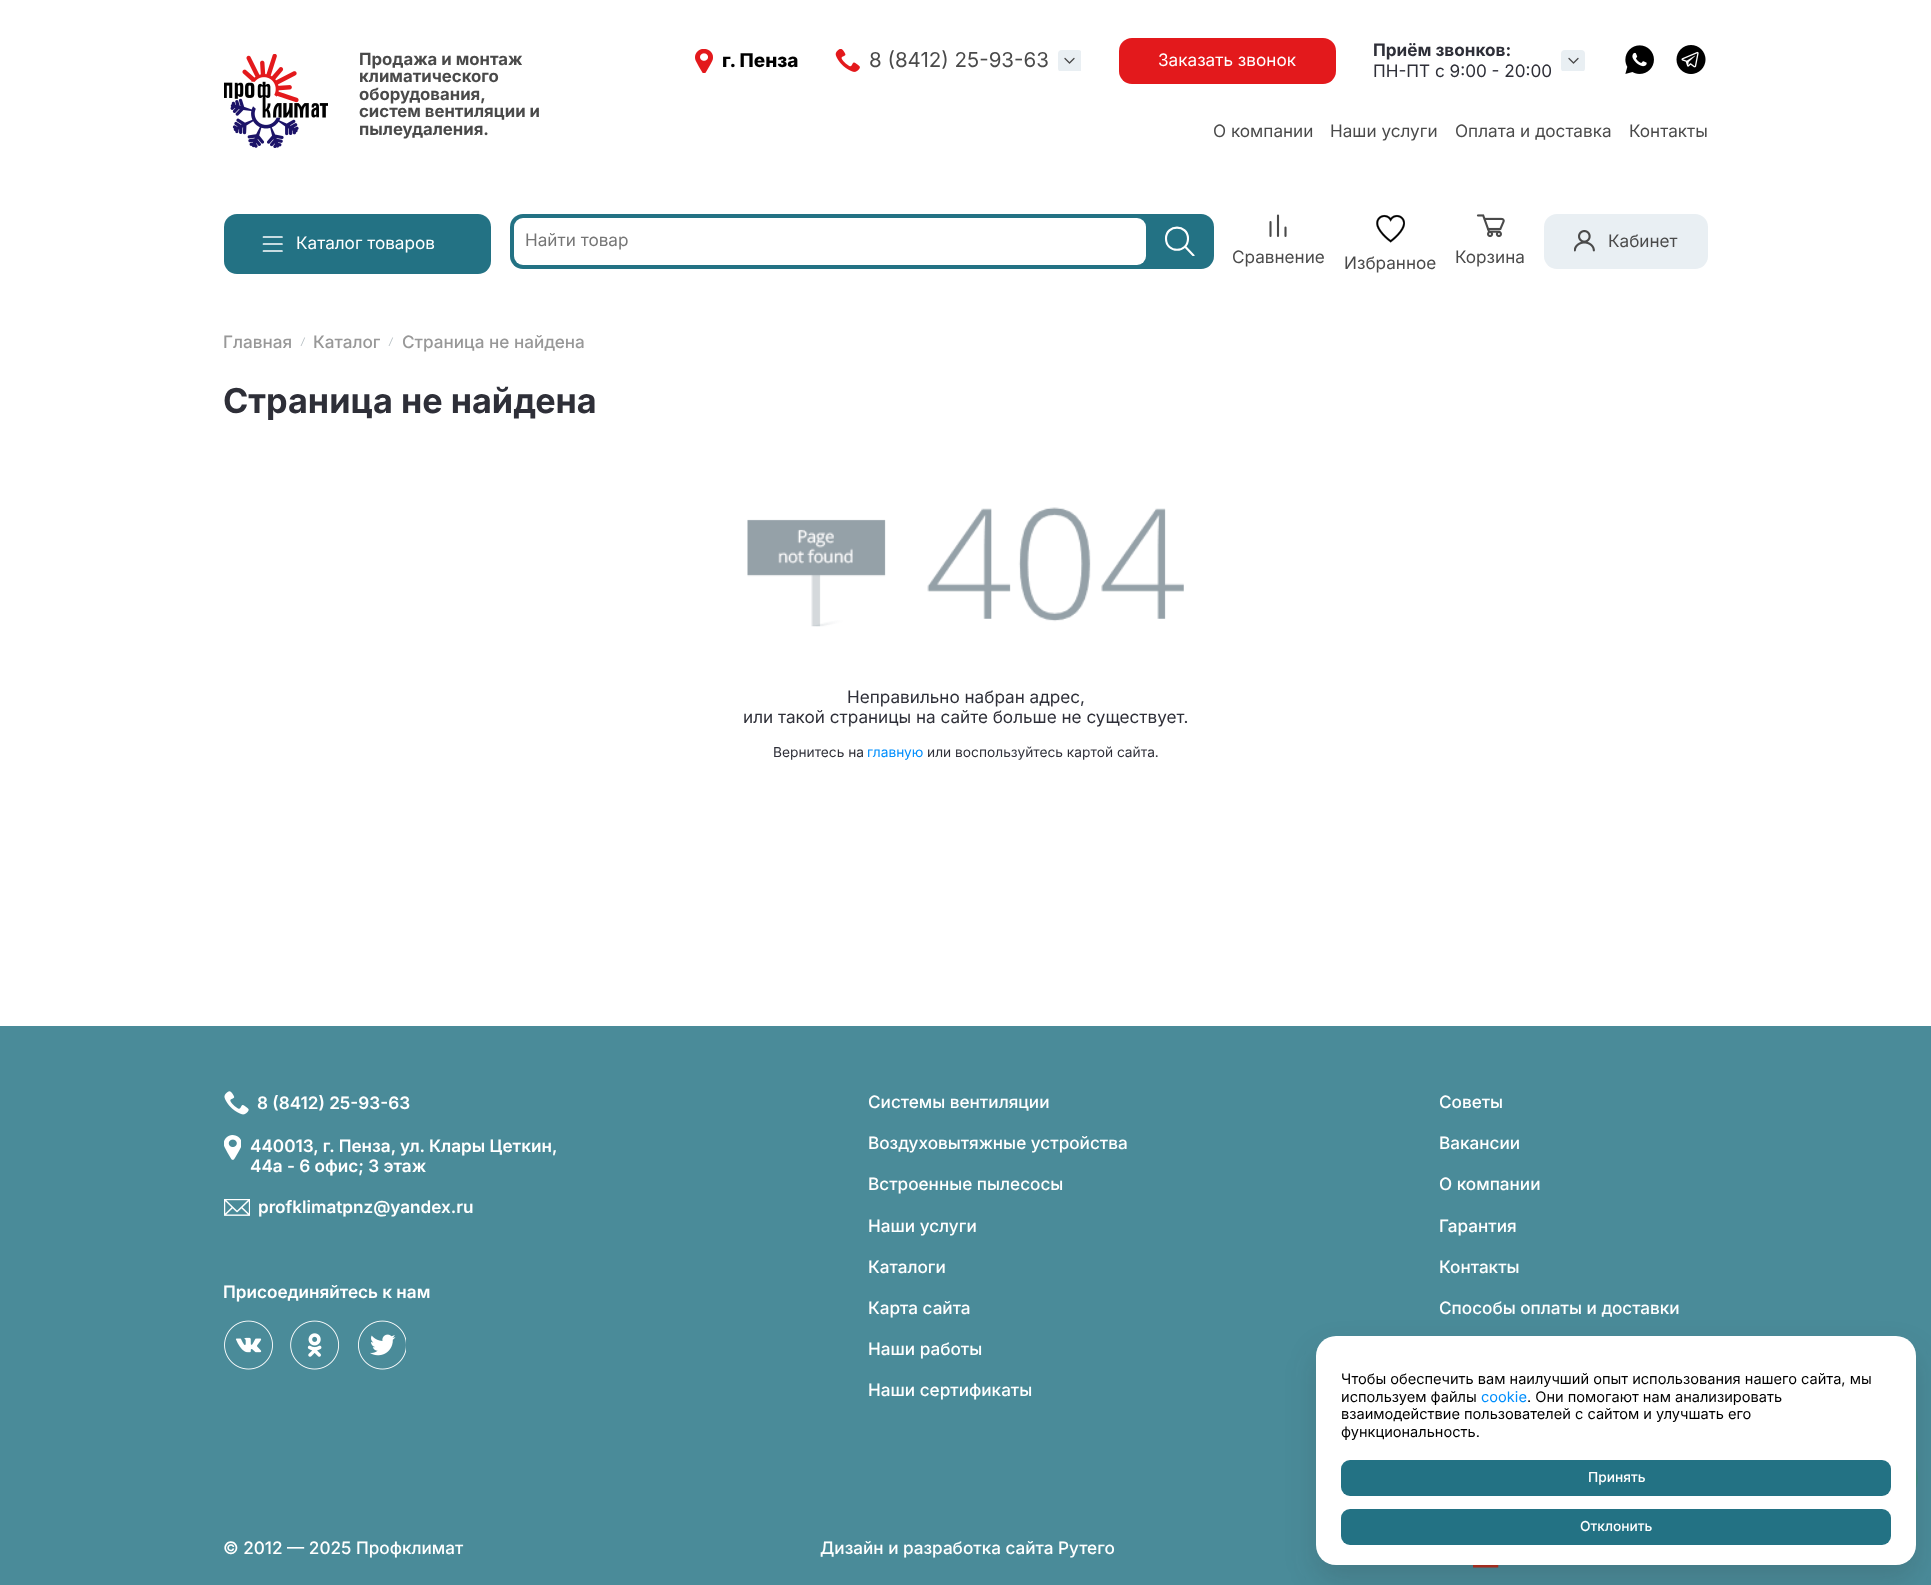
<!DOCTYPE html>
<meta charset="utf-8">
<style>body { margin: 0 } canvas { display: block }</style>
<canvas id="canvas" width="1931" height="1585"></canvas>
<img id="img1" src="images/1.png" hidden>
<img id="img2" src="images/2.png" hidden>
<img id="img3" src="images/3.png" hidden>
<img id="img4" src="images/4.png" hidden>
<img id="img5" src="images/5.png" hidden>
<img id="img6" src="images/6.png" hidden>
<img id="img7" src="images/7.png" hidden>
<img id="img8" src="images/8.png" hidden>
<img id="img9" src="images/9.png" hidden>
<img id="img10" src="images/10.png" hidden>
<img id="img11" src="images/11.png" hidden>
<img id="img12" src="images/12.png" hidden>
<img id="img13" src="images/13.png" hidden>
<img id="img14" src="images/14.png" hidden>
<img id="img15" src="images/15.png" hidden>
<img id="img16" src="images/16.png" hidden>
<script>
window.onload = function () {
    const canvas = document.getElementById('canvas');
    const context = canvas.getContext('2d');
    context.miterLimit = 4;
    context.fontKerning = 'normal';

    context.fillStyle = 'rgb(255, 255, 255)';
    context.fillRect(0, 0, 1931, 1585);
    context.drawImage(document.getElementById('img1'), 224, 54, 104, 94);
    context.drawImage(document.getElementById('img2'), 695, 49, 18, 24);
    context.drawImage(document.getElementById('img3'), 835, 49, 25, 23);
    context.save();
    context.beginPath();
    context.rect(1058, 50, 23, 21);
    context.clip();
    context.fillStyle = 'rgb(233, 239, 243)';
    context.beginPath();
    context.roundRect(1058, 50, 24, 22, 4);
    context.fill();
    context.restore();
    context.beginPath();
    context.moveTo(1065, 58.5);
    context.lineTo(1069.5, 63);
    context.lineTo(1074, 58.5);
    context.strokeStyle = 'rgb(74, 74, 74)';
    context.lineWidth = 1.3;
    context.lineCap = 'round';
    context.lineJoin = 'round';
    context.stroke();
    context.fillStyle = 'rgb(227, 25, 28)';
    context.beginPath();
    context.roundRect(1119, 38, 217, 46, 13);
    context.fill();
    context.save();
    context.beginPath();
    context.rect(1561, 50, 24, 21);
    context.clip();
    context.fillStyle = 'rgb(233, 239, 243)';
    context.beginPath();
    context.roundRect(1561, 50, 24, 22, 4);
    context.fill();
    context.restore();
    context.beginPath();
    context.moveTo(1569, 58.5);
    context.lineTo(1573.5, 63);
    context.lineTo(1578, 58.5);
    context.stroke();
    context.drawImage(document.getElementById('img4'), 1625, 45, 29, 29);
    context.drawImage(document.getElementById('img5'), 1676, 45, 30, 29);
    context.fillStyle = 'rgb(35, 114, 132)';
    context.beginPath();
    context.roundRect(224, 214, 267, 60, 13);
    context.fill();
    context.beginPath();
    context.moveTo(263.5, 237);
    context.lineTo(282, 237);
    context.moveTo(263.5, 244);
    context.lineTo(282, 244);
    context.moveTo(263.5, 251);
    context.lineTo(282, 251);
    context.strokeStyle = 'rgb(255, 255, 255)';
    context.lineWidth = 1.7;
    context.lineJoin = 'miter';
    context.stroke();
    context.beginPath();
    context.roundRect(510, 214, 704, 55, 13);
    context.fill();
    context.fillStyle = 'rgb(255, 255, 255)';
    context.beginPath();
    context.roundRect(514, 218, 632, 47, 9);
    context.fill();
    context.beginPath();
    context.moveTo(1188, 238.5);
    context.bezierCurveTo(1188, 253.5, 1166, 253.5, 1166, 238.5);
    context.bezierCurveTo(1166, 224, 1188, 224, 1188, 238.5);
    context.closePath();
    context.lineWidth = 2.1;
    context.lineCap = 'butt';
    context.stroke();
    context.save();
    context.beginPath();
    context.rect(1165, 226, 30, 30);
    context.clip();
    context.beginPath();
    context.moveTo(1185.5, 247);
    context.lineTo(1193.5, 255.5);
    context.lineCap = 'round';
    context.stroke();
    context.restore();
    context.fillStyle = 'rgb(233, 239, 243)';
    context.beginPath();
    context.roundRect(1544, 214, 164, 55, 13);
    context.fill();
    context.drawImage(document.getElementById('img6'), 1574, 230, 21, 22);
    context.beginPath();
    context.moveTo(1270.5, 236);
    context.lineTo(1270.5, 222);
    context.moveTo(1278, 236);
    context.lineTo(1278, 215.5);
    context.moveTo(1285.5, 236);
    context.lineTo(1285.5, 227.5);
    context.strokeStyle = 'rgb(74, 74, 74)';
    context.lineCap = 'round';
    context.stroke();
    context.drawImage(document.getElementById('img7'), 1376, 214, 29, 29);
    context.drawImage(document.getElementById('img8'), 1476, 214, 29, 24);
    context.drawImage(document.getElementById('img9'), 747, 507, 437, 120);
    context.fillStyle = 'rgb(74, 139, 153)';
    context.fillRect(0, 1026, 1931, 559);
    context.drawImage(document.getElementById('img10'), 224, 1091, 25, 24);
    context.drawImage(document.getElementById('img11'), 224, 1135, 17, 25);
    context.drawImage(document.getElementById('img12'), 224, 1199, 26, 17);
    context.drawImage(document.getElementById('img13'), 224, 1320, 49, 50);
    context.drawImage(document.getElementById('img14'), 290, 1320, 50, 50);
    context.drawImage(document.getElementById('img15'), 358, 1320, 48, 50);
    context.drawImage(document.getElementById('img16'), 1473, 1565, 26, 3);
    context.fillStyle = 'rgba(28, 163, 69, 0.22)';
    context.beginPath();
    context.roundRect(1861, 1450, 57, 56, 28);
    context.fill();
    context.fillStyle = 'rgba(38, 38, 38, 0.16)';
    context.filter = 'blur(15px)';
    context.beginPath();
    context.roundRect(1316, 1351, 600, 229, 20);
    context.fill();
    context.filter = 'none';
    context.fillStyle = 'rgb(255, 255, 255)';
    context.beginPath();
    context.roundRect(1316, 1336, 600, 229, 20);
    context.fill();
    context.fillStyle = 'rgb(35, 114, 132)';
    context.beginPath();
    context.roundRect(1341, 1460, 550, 36, 9);
    context.fill();
    context.beginPath();
    context.roundRect(1341, 1509, 550, 36, 9);
    context.fill();
    context.font = 'bold 16.75px Inter';
    context.fillStyle = 'rgb(74, 74, 74)';
    context.fillText('Продажа и монтаж', 359, 65);
    context.fillText('климатического', 359, 82);
    context.fillText('оборудования,', 359, 100);
    context.fillText('систем вентиляции и', 359, 117);
    context.fillText('пылеудаления.', 359, 135);
    context.font = '800 19px Inter';
    context.fillStyle = 'rgb(0, 0, 0)';
    context.fillText('г. Пенза', 722, 67);
    context.font = '20.5px Inter';
    context.fillStyle = 'rgb(74, 74, 74)';
    context.fillText('8 (8412) 25-93-63', 869, 67);
    context.font = '17.15px Inter';
    context.fillStyle = 'rgb(255, 255, 255)';
    context.fillText('Заказать звонок', 1158, 66);
    context.font = 'bold 17.15px Inter';
    context.fillStyle = 'rgb(46, 47, 56)';
    context.fillText('Приём звонков:', 1373, 56);
    context.font = '17.15px Inter';
    context.fillText('ПН-ПТ с 9:00 - 20:00', 1373, 77);
    context.fillStyle = 'rgb(74, 74, 74)';
    context.fillText('О компании', 1213, 137);
    context.fillText('Наши услуги', 1330, 137);
    context.fillText('Оплата и доставка', 1455, 137);
    context.fillText('Контакты', 1629, 137);
    context.fillStyle = 'rgb(255, 255, 255)';
    context.fillText('Каталог товаров', 296, 249);
    context.fillStyle = 'rgb(117, 117, 117)';
    context.fillText('Найти товар', 525, 246);
    context.fillStyle = 'rgb(74, 74, 74)';
    context.fillText('Кабинет', 1608, 247);
    context.fillText('Сравнение', 1232, 263);
    context.fillText('Избранное', 1344, 269);
    context.fillText('Корзина', 1455, 263);
    context.font = '500 17.15px Inter';
    context.fillStyle = 'rgb(152, 152, 152)';
    context.fillText('Главная', 223, 348);
    context.font = 'italic 10px Inter';
    context.fillStyle = 'rgb(181, 189, 194)';
    context.fillText('/', 301, 345);
    context.font = '500 17.15px Inter';
    context.fillStyle = 'rgb(152, 152, 152)';
    context.fillText('Каталог', 313, 348);
    context.font = 'italic 10px Inter';
    context.fillStyle = 'rgb(181, 189, 194)';
    context.fillText('/', 389, 345);
    context.font = '500 17.15px Inter';
    context.fillStyle = 'rgb(152, 152, 152)';
    context.fillText('Страница не найдена', 402, 348);
    context.font = 'bold 34.25px Inter';
    context.fillStyle = 'rgb(46, 47, 56)';
    context.fillText('Страница не найдена', 223, 413);
    context.font = '17.15px Inter';
    context.fillText('Неправильно набран адрес,', 847, 703);
    context.fillText('или такой страницы на сайте больше не существует.', 743, 723);
    context.font = '13.75px Inter';
    context.fillText('Вернитесь на', 773, 757);
    context.fillStyle = 'rgb(0, 142, 252)';
    context.fillText('главную', 867, 757);
    context.fillStyle = 'rgb(46, 47, 56)';
    context.fillText('или воспользуйтесь картой сайта.', 927, 757);
    context.font = '600 17.15px Inter';
    context.fillStyle = 'rgb(255, 255, 255)';
    context.fillText('8 (8412) 25-93-63', 257, 1109);
    context.fillText('440013, г. Пенза, ул. Клары Цеткин,', 250, 1152);
    context.fillText('44а - 6 офис; 3 этаж', 250, 1172);
    context.fillText('profklimatpnz@yandex.ru', 258, 1213);
    context.fillText('Присоединяйтесь к нам', 223, 1298);
    context.font = '500 17.15px Inter';
    context.fillText('Системы вентиляции', 868, 1108);
    context.fillText('Воздуховытяжные устройства', 868, 1149);
    context.fillText('Встроенные пылесосы', 868, 1190);
    context.fillText('Наши услуги', 868, 1232);
    context.fillText('Каталоги', 868, 1273);
    context.fillText('Карта сайта', 868, 1314);
    context.fillText('Наши работы', 868, 1355);
    context.fillText('Наши сертификаты', 868, 1396);
    context.fillText('Советы', 1439, 1108);
    context.fillText('Вакансии', 1439, 1149);
    context.fillText('О компании', 1439, 1190);
    context.fillText('Гарантия', 1439, 1232);
    context.fillText('Контакты', 1439, 1273);
    context.fillText('Способы оплаты и доставки', 1439, 1314);
    context.fillText('© 2012 — 2025 Профклимат', 223, 1554);
    context.fillText('Дизайн и разработка сайта Рутего', 820, 1554);
    context.font = '14.6px Inter';
    context.fillStyle = 'rgb(0, 0, 0)';
    context.fillText('Чтобы обеспечить вам наилучший опыт использования нашего сайта, мы', 1341, 1384);
    context.fillText('используем файлы', 1341, 1402);
    context.fillStyle = 'rgb(0, 142, 252)';
    context.fillText('cookie', 1481, 1402);
    context.fillStyle = 'rgb(0, 0, 0)';
    context.fillText('. Они помогают нам анализировать', 1527, 1402);
    context.fillText('взаимодействие пользователей с сайтом и улучшать его', 1341, 1419);
    context.fillText('функциональность.', 1341, 1437);
    context.font = '500 13.75px Inter';
    context.fillStyle = 'rgb(255, 255, 255)';
    context.fillText('Принять', 1588, 1482);
    context.fillText('Отклонить', 1580, 1531);
};
</script>
